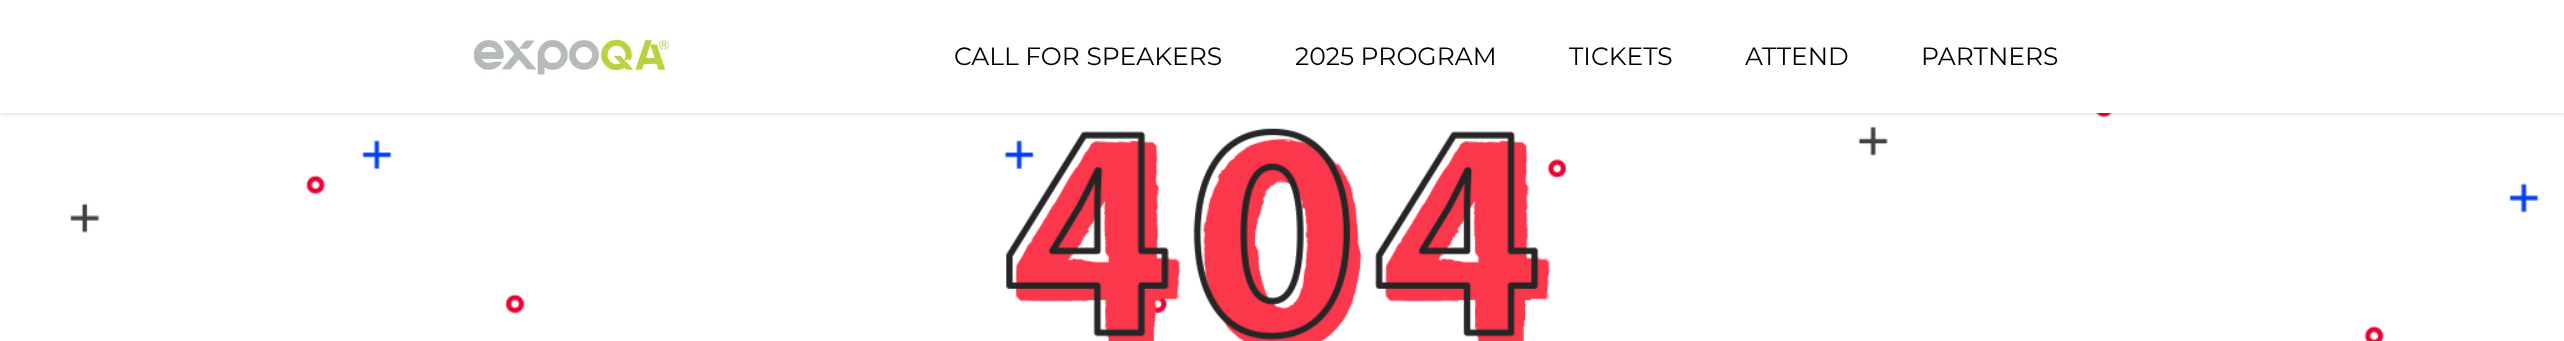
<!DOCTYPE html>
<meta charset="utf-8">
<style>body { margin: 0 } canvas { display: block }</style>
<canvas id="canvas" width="2564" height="341"></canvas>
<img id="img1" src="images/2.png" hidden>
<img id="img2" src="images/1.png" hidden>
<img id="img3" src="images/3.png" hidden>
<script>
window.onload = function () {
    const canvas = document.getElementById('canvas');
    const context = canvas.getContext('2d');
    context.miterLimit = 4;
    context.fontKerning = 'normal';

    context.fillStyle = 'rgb(255, 255, 255)';
    context.fillRect(0, 0, 2564, 341);
    context.drawImage(document.getElementById('img1'), 70, 113, 2469, 228);
    context.fillStyle = 'rgba(0, 0, 0, 0.15)';
    context.filter = 'blur(2px)';
    context.beginPath();
    context.rect(0, 1, 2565, 113);
    context.fill();
    context.filter = 'none';
    context.fillStyle = 'rgb(255, 255, 255)';
    context.fillRect(0, 0, 2564, 113);
    context.drawImage(document.getElementById('img2'), 474, 38, 197, 38);
    context.drawImage(document.getElementById('img3'), 1006, 128, 545, 213);
    context.font = '25px Montserrat';
    context.fillStyle = 'rgb(0, 0, 0)';
    context.fillText('CALL FOR SPEAKERS', 954, 65);
    context.fillText('2025 PROGRAM', 1295, 65);
    context.fillText('TICKETS', 1569, 65);
    context.fillText('ATTEND', 1745, 65);
    context.fillText('PARTNERS', 1921, 65);
};
</script>
